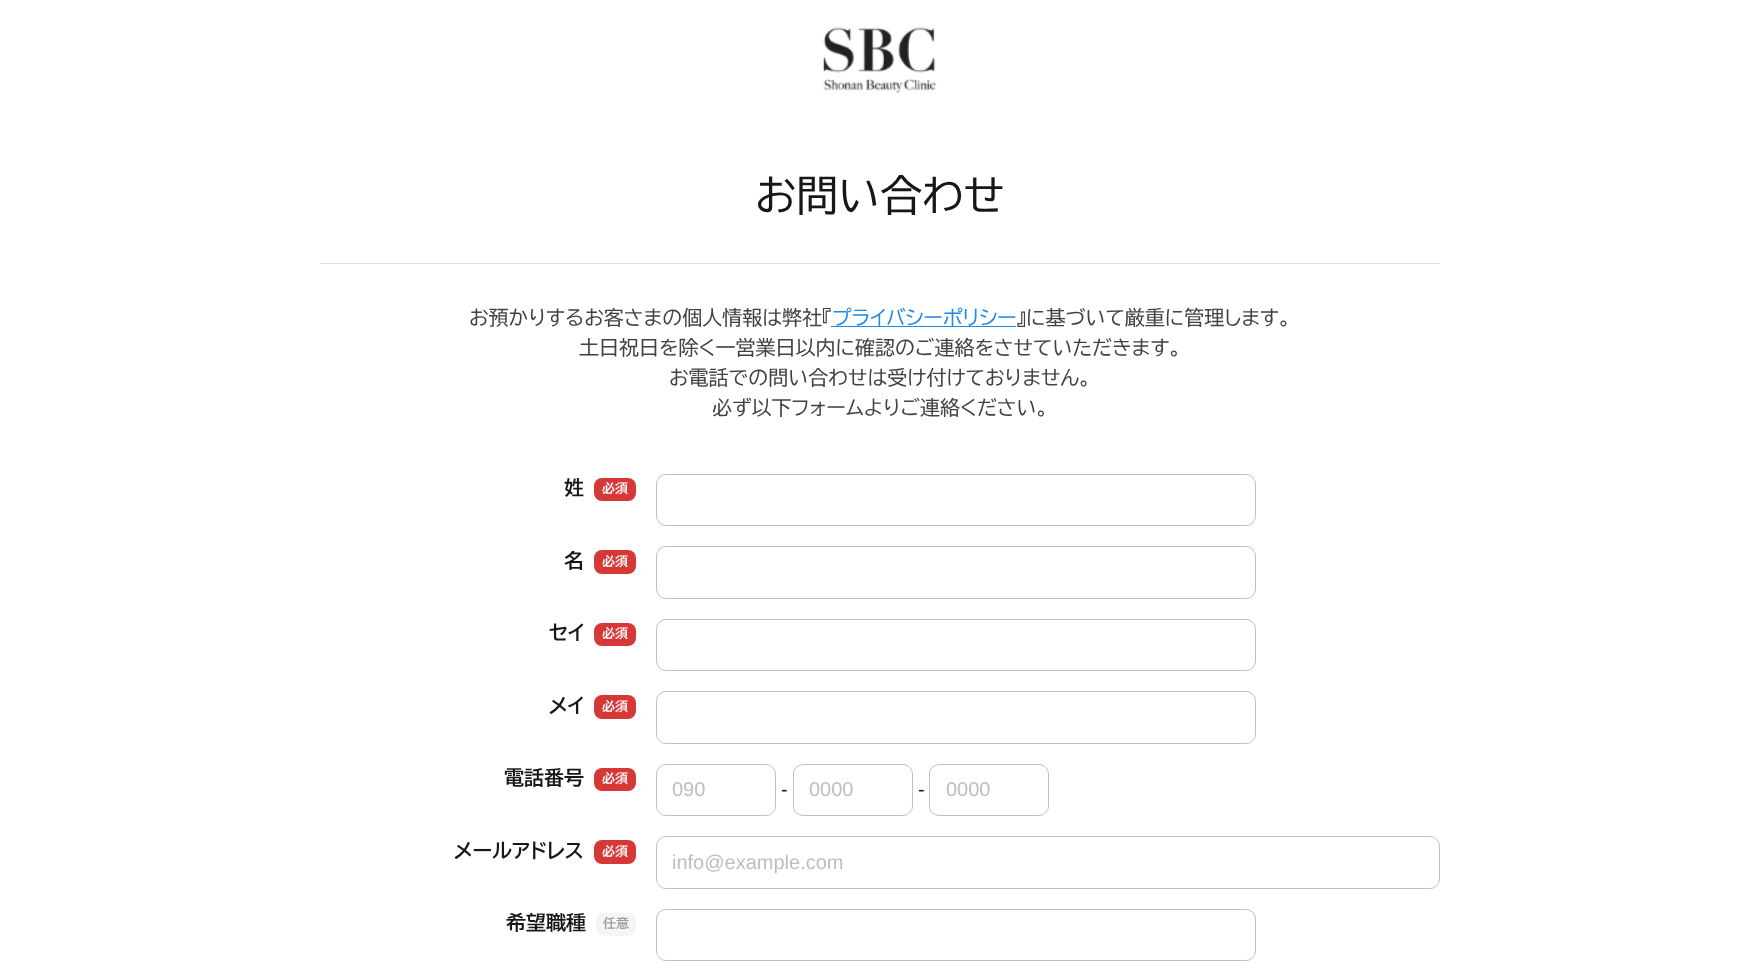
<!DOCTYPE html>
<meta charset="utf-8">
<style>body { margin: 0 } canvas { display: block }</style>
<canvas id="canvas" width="1760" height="968"></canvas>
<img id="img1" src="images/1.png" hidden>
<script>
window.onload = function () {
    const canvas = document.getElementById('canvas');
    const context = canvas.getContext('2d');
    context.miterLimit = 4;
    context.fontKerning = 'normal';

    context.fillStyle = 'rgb(255, 255, 255)';
    context.fillRect(0, 0, 1760, 968);
    context.drawImage(document.getElementById('img1'), 823, 27, 114, 66);
    context.fillStyle = 'rgb(224, 224, 224)';
    context.fillRect(320, 263, 1120, 1);
    context.fillStyle = 'rgb(30, 136, 229)';
    context.fillRect(831, 326, 185, 1);
    context.fillStyle = 'rgb(214, 56, 56)';
    context.beginPath();
    context.roundRect(594, 478, 42, 23, 8);
    context.fill();
    context.beginPath();
    context.roundRect(656.5, 474.5, 599, 51, 9.5);
    context.strokeStyle = 'rgb(191, 191, 191)';
    context.stroke();
    context.beginPath();
    context.roundRect(594, 550, 42, 24, 8);
    context.fill();
    context.beginPath();
    context.roundRect(656.5, 546.5, 599, 52, 9.5);
    context.stroke();
    context.beginPath();
    context.roundRect(594, 623, 42, 23, 8);
    context.fill();
    context.beginPath();
    context.roundRect(656.5, 619.5, 599, 51, 9.5);
    context.stroke();
    context.beginPath();
    context.roundRect(594, 695, 42, 24, 8);
    context.fill();
    context.beginPath();
    context.roundRect(656.5, 691.5, 599, 52, 9.5);
    context.stroke();
    context.beginPath();
    context.roundRect(594, 768, 42, 23, 8);
    context.fill();
    context.beginPath();
    context.roundRect(656.5, 764.5, 119, 51, 9.5);
    context.stroke();
    context.beginPath();
    context.roundRect(793.5, 764.5, 119, 51, 9.5);
    context.stroke();
    context.beginPath();
    context.roundRect(929.5, 764.5, 119, 51, 9.5);
    context.stroke();
    context.beginPath();
    context.roundRect(594, 840, 42, 24, 8);
    context.fill();
    context.beginPath();
    context.roundRect(656.5, 836.5, 783, 52, 9.5);
    context.stroke();
    context.fillStyle = 'rgb(245, 245, 245)';
    context.beginPath();
    context.roundRect(596, 913, 40, 23, 8);
    context.fill();
    context.beginPath();
    context.roundRect(656.5, 909.5, 599, 51, 9.5);
    context.stroke();
    context.font = '42px BIZ UDPGothic';
    context.fillStyle = 'rgb(23, 23, 23)';
    context.fillText('お問い合わせ', 755, 211);
    context.font = '20px BIZ UDPGothic';
    context.fillStyle = 'rgb(66, 66, 66)';
    context.fillText('お預かりするお客さまの個人情報は弊社『', 469, 325);
    context.fillStyle = 'rgb(30, 136, 229)';
    context.fillText('プライバシーポリシー', 832, 325);
    context.fillStyle = 'rgb(66, 66, 66)';
    context.fillText('』に基づいて厳重に管理します。', 1016, 325);
    context.fillText('土日祝日を除く一営業日以内に確認のご連絡をさせていただきます。', 579, 355);
    context.fillText('お電話での問い合わせは受け付けておりません。', 669, 385);
    context.fillText('必ず以下フォームよりご連絡ください。', 712, 415);
    context.font = 'bold 20px BIZ UDPGothic';
    context.fillStyle = 'rgb(23, 23, 23)';
    context.fillText('姓', 564, 495);
    context.font = 'bold 13px BIZ UDPGothic';
    context.fillStyle = 'rgb(255, 255, 255)';
    context.fillText('必須', 602, 493);
    context.font = 'bold 20px BIZ UDPGothic';
    context.fillStyle = 'rgb(23, 23, 23)';
    context.fillText('名', 564, 568);
    context.font = 'bold 13px BIZ UDPGothic';
    context.fillStyle = 'rgb(255, 255, 255)';
    context.fillText('必須', 602, 566);
    context.font = 'bold 20px BIZ UDPGothic';
    context.fillStyle = 'rgb(23, 23, 23)';
    context.fillText('セイ', 549, 640);
    context.font = 'bold 13px BIZ UDPGothic';
    context.fillStyle = 'rgb(255, 255, 255)';
    context.fillText('必須', 602, 638);
    context.font = 'bold 20px BIZ UDPGothic';
    context.fillStyle = 'rgb(23, 23, 23)';
    context.fillText('メイ', 549, 713);
    context.font = 'bold 13px BIZ UDPGothic';
    context.fillStyle = 'rgb(255, 255, 255)';
    context.fillText('必須', 602, 711);
    context.font = 'bold 20px BIZ UDPGothic';
    context.fillStyle = 'rgb(23, 23, 23)';
    context.fillText('電話番号', 504, 785);
    context.font = 'bold 13px BIZ UDPGothic';
    context.fillStyle = 'rgb(255, 255, 255)';
    context.fillText('必須', 602, 783);
    context.font = '20px Liberation Sans';
    context.fillStyle = 'rgb(189, 189, 189)';
    context.fillText('090', 672, 796);
    context.fillStyle = 'rgb(23, 23, 23)';
    context.fillText('-', 781, 796);
    context.fillStyle = 'rgb(189, 189, 189)';
    context.fillText('0000', 809, 796);
    context.fillStyle = 'rgb(23, 23, 23)';
    context.fillText('-', 918, 796);
    context.fillStyle = 'rgb(189, 189, 189)';
    context.fillText('0000', 946, 796);
    context.font = 'bold 20px BIZ UDPGothic';
    context.fillStyle = 'rgb(23, 23, 23)';
    context.fillText('メールアドレス', 454, 858);
    context.font = 'bold 13px BIZ UDPGothic';
    context.fillStyle = 'rgb(255, 255, 255)';
    context.fillText('必須', 602, 856);
    context.font = '20px Liberation Sans';
    context.fillStyle = 'rgb(189, 189, 189)';
    context.fillText('info@example.com', 672, 869);
    context.font = 'bold 20px BIZ UDPGothic';
    context.fillStyle = 'rgb(23, 23, 23)';
    context.fillText('希望職種', 506, 930);
    context.font = 'bold 13px BIZ UDPGothic';
    context.fillStyle = 'rgb(158, 158, 158)';
    context.fillText('任意', 603, 928);
};
</script>
